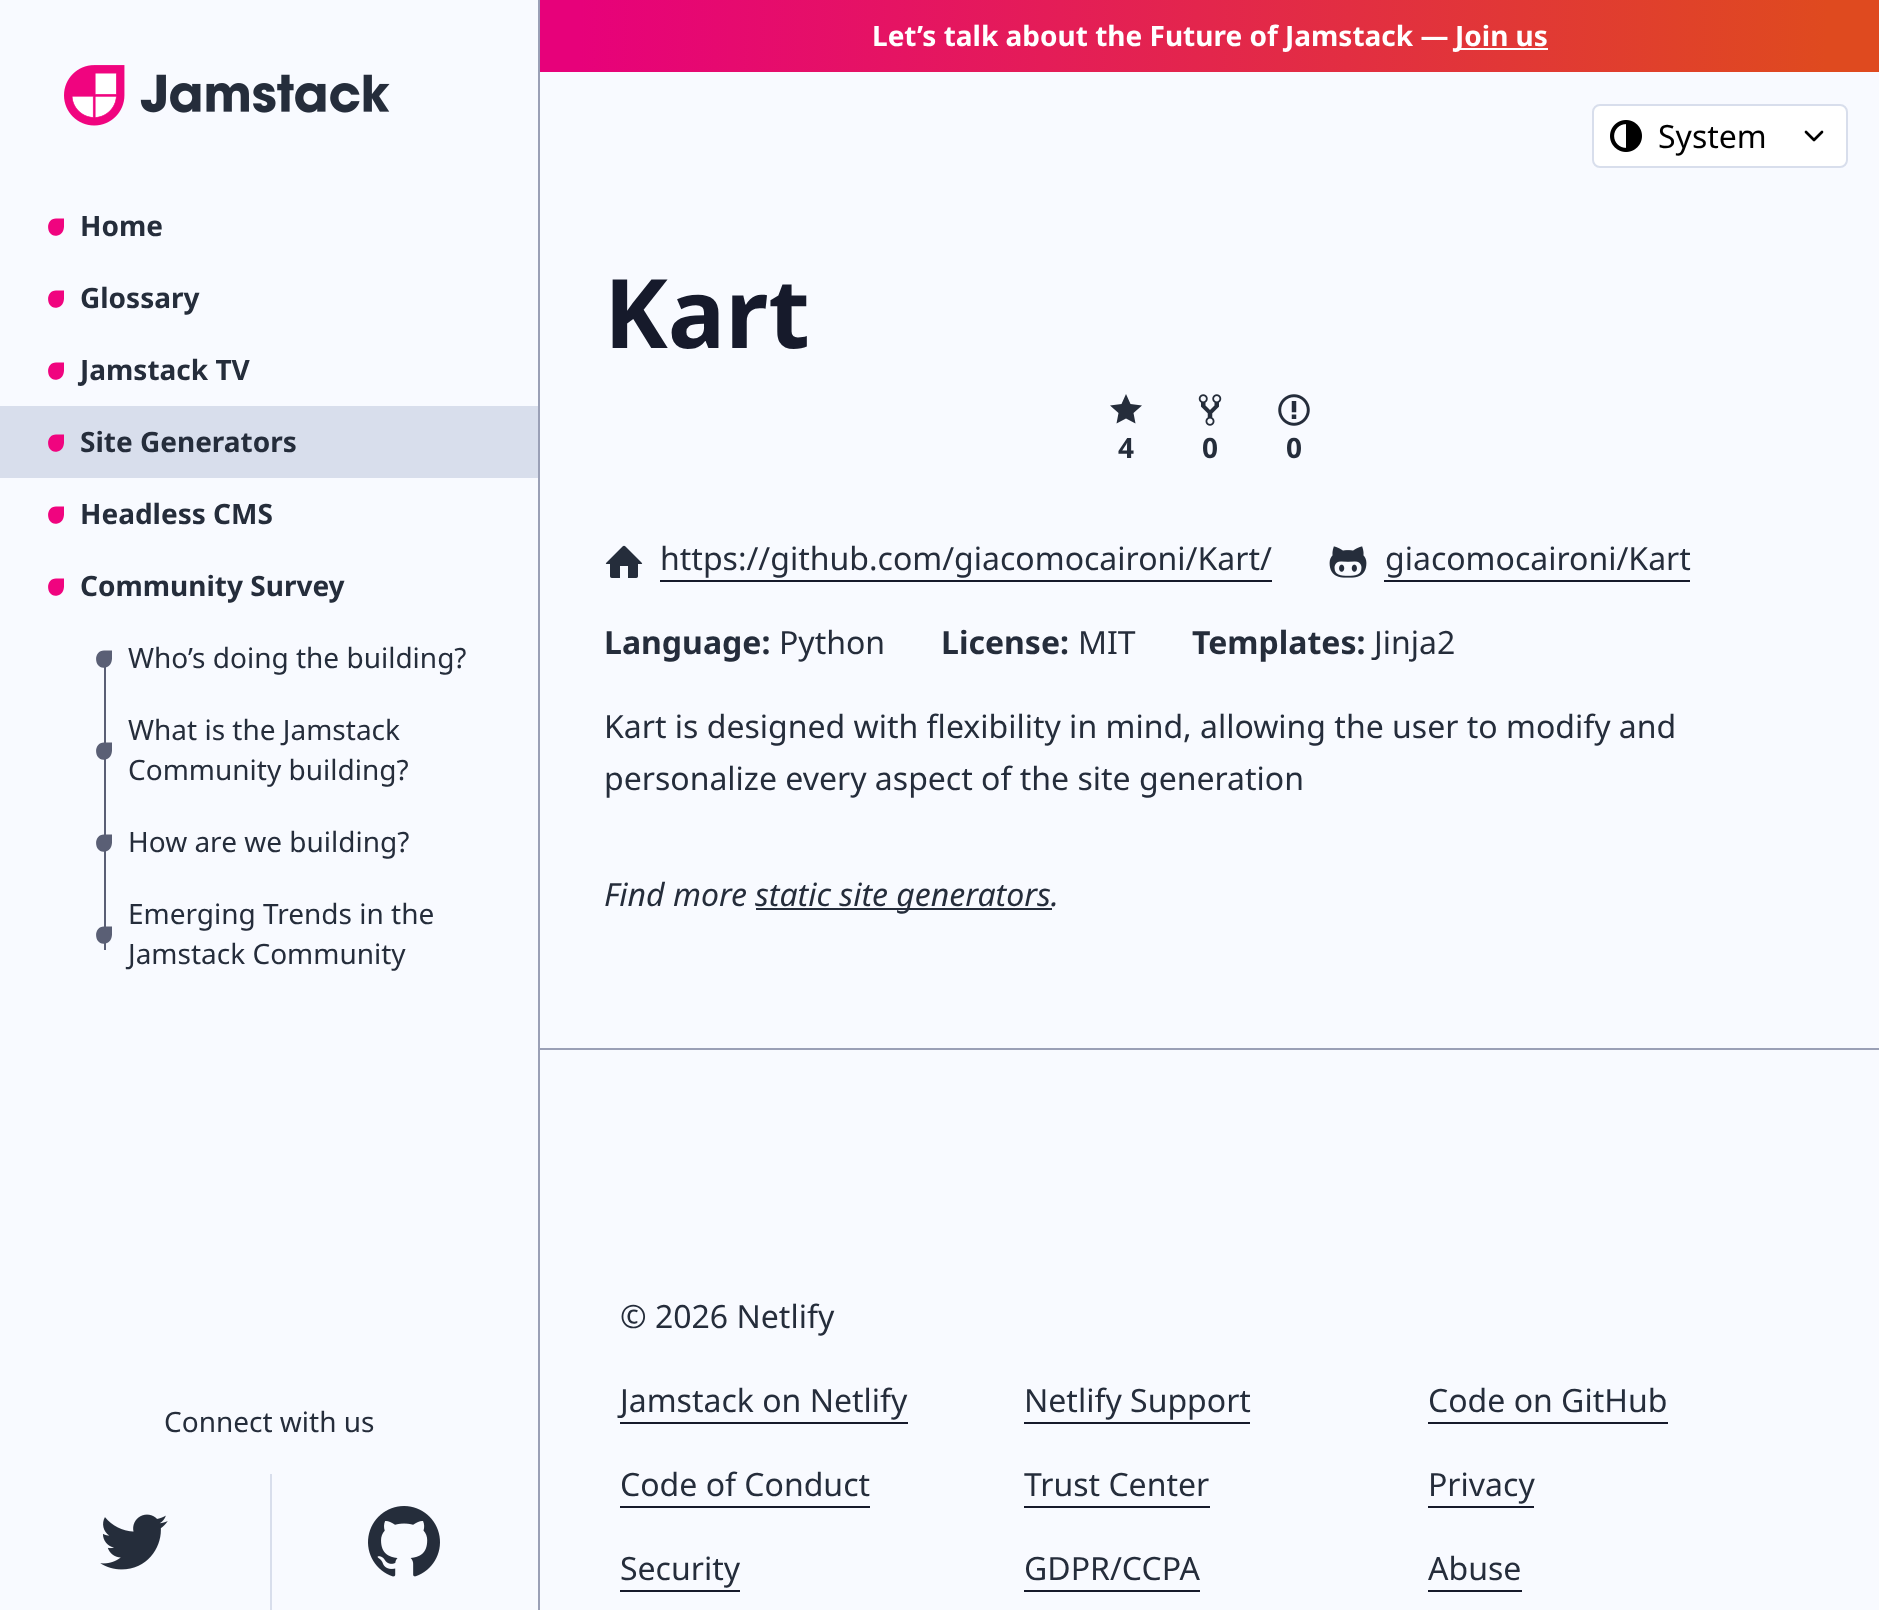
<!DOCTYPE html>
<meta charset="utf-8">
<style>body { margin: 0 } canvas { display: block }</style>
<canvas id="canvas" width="1879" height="1610"></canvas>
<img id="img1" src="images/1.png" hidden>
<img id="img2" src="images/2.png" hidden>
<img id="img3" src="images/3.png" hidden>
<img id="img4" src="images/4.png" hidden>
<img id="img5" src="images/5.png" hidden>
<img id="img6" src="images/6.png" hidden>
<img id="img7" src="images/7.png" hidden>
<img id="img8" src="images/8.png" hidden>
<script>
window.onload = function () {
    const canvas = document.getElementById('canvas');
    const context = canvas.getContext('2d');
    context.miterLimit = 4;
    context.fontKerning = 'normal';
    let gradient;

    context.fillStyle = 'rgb(248, 250, 255)';
    context.fillRect(0, 0, 1879, 1610);
    context.fillStyle = 'rgb(154, 160, 182)';
    context.fillRect(538, 0, 2, 1610);
    context.drawImage(document.getElementById('img1'), 64, 65, 326, 61);
    context.save();
    context.beginPath();
    context.rect(48, 218, 16, 18);
    context.clip();
    context.fillStyle = 'rgb(240, 4, 127)';
    context.beginPath();
    context.moveTo(56, 218.5);
    context.bezierCurveTo(44.5, 218.5, 46, 238, 57.5, 235.5);
    context.bezierCurveTo(65.5, 234, 64, 224.5, 64, 218.5);
    context.closePath();
    context.fill();
    context.restore();
    context.save();
    context.beginPath();
    context.rect(48, 290, 16, 18);
    context.clip();
    context.fillStyle = 'rgb(240, 4, 127)';
    context.beginPath();
    context.moveTo(56, 290.5);
    context.bezierCurveTo(44.5, 290.5, 46, 310, 57.5, 307.5);
    context.bezierCurveTo(65.5, 306, 64, 296.5, 64, 290.5);
    context.closePath();
    context.fill();
    context.restore();
    context.save();
    context.beginPath();
    context.rect(48, 362, 16, 18);
    context.clip();
    context.fillStyle = 'rgb(240, 4, 127)';
    context.beginPath();
    context.moveTo(56, 362.5);
    context.bezierCurveTo(44.5, 362.5, 46, 382, 57.5, 379.5);
    context.bezierCurveTo(65.5, 378, 64, 368.5, 64, 362.5);
    context.closePath();
    context.fill();
    context.restore();
    context.fillStyle = 'rgb(216, 222, 236)';
    context.fillRect(0, 406, 538, 72);
    context.save();
    context.beginPath();
    context.rect(48, 434, 16, 18);
    context.clip();
    context.fillStyle = 'rgb(240, 4, 127)';
    context.beginPath();
    context.moveTo(56, 434.5);
    context.bezierCurveTo(44.5, 434.5, 46, 454, 57.5, 451.5);
    context.bezierCurveTo(65.5, 450, 64, 440.5, 64, 434.5);
    context.closePath();
    context.fill();
    context.restore();
    context.save();
    context.beginPath();
    context.rect(48, 506, 16, 18);
    context.clip();
    context.fillStyle = 'rgb(240, 4, 127)';
    context.beginPath();
    context.moveTo(56, 506.5);
    context.bezierCurveTo(44.5, 506.5, 46, 526, 57.5, 523.5);
    context.bezierCurveTo(65.5, 522, 64, 512.5, 64, 506.5);
    context.closePath();
    context.fill();
    context.restore();
    context.save();
    context.beginPath();
    context.rect(48, 578, 16, 18);
    context.clip();
    context.fillStyle = 'rgb(240, 4, 127)';
    context.beginPath();
    context.moveTo(56, 578.5);
    context.bezierCurveTo(44.5, 578.5, 46, 598, 57.5, 595.5);
    context.bezierCurveTo(65.5, 594, 64, 584.5, 64, 578.5);
    context.closePath();
    context.fill();
    context.restore();
    context.fillStyle = 'rgb(90, 95, 117)';
    context.fillRect(104, 662, 2, 288);
    context.save();
    context.beginPath();
    context.rect(96, 650, 16, 18);
    context.clip();
    context.beginPath();
    context.moveTo(104, 650.5);
    context.bezierCurveTo(92.5, 650.5, 94, 670, 105.5, 667.5);
    context.bezierCurveTo(113.5, 666, 112, 656.5, 112, 650.5);
    context.closePath();
    context.fill();
    context.restore();
    context.save();
    context.beginPath();
    context.rect(96, 742, 16, 18);
    context.clip();
    context.beginPath();
    context.moveTo(104, 742.5);
    context.bezierCurveTo(92.5, 742.5, 94, 762, 105.5, 759.5);
    context.bezierCurveTo(113.5, 758, 112, 748.5, 112, 742.5);
    context.closePath();
    context.fill();
    context.restore();
    context.save();
    context.beginPath();
    context.rect(96, 834, 16, 18);
    context.clip();
    context.beginPath();
    context.moveTo(104, 834.5);
    context.bezierCurveTo(92.5, 834.5, 94, 854, 105.5, 851.5);
    context.bezierCurveTo(113.5, 850, 112, 840.5, 112, 834.5);
    context.closePath();
    context.fill();
    context.restore();
    context.save();
    context.beginPath();
    context.rect(96, 926, 16, 18);
    context.clip();
    context.beginPath();
    context.moveTo(104, 926.5);
    context.bezierCurveTo(92.5, 926.5, 94, 946, 105.5, 943.5);
    context.bezierCurveTo(113.5, 942, 112, 932.5, 112, 926.5);
    context.closePath();
    context.fill();
    context.restore();
    context.drawImage(document.getElementById('img2'), 100, 1514, 68, 56);
    context.fillStyle = 'rgb(216, 222, 236)';
    context.fillRect(270, 1474, 2, 136);
    context.drawImage(document.getElementById('img3'), 368, 1506, 72, 71);
    gradient = context.createLinearGradient(540, 15, 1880, 57);
    gradient.addColorStop(0.03, 'rgb(231, 1, 122)');
    gradient.addColorStop(0.96, 'rgb(223, 74, 31)');
    context.fillStyle = gradient;
    context.fillRect(540, 0, 1339, 72);
    context.fillStyle = 'rgb(255, 255, 255)';
    context.fillRect(1456, 48, 92, 2);
    context.beginPath();
    context.roundRect(1593, 105, 254, 62, 7);
    context.fill();
    context.strokeStyle = 'rgb(216, 222, 236)';
    context.lineWidth = 2;
    context.stroke();
    context.drawImage(document.getElementById('img4'), 1610, 120, 32, 32);
    context.beginPath();
    context.moveTo(1806, 132);
    context.lineTo(1814, 140);
    context.lineTo(1822, 132);
    context.strokeStyle = 'rgb(0, 0, 0)';
    context.lineWidth = 2.7;
    context.lineCap = 'round';
    context.lineJoin = 'round';
    context.stroke();
    context.fillStyle = 'rgb(37, 45, 59)';
    context.beginPath();
    context.moveTo(1142, 405.5);
    context.lineTo(1130.5, 404);
    context.lineTo(1126, 394);
    context.lineTo(1121.5, 404);
    context.lineTo(1110, 405.5);
    context.lineTo(1118.5, 413);
    context.lineTo(1116.5, 423.5);
    context.lineTo(1126, 418.5);
    context.lineTo(1135.5, 423.5);
    context.lineTo(1133.5, 413);
    context.closePath();
    context.fill('evenodd');
    context.drawImage(document.getElementById('img5'), 1198, 394, 24, 32);
    context.drawImage(document.getElementById('img6'), 1278, 394, 32, 32);
    context.drawImage(document.getElementById('img7'), 605, 545, 38, 33);
    context.fillStyle = 'rgb(22, 26, 43)';
    context.fillRect(660, 580, 612, 2);
    context.drawImage(document.getElementById('img8'), 1329, 546, 38, 32);
    context.fillRect(1384, 580, 306, 2);
    context.fillStyle = 'rgb(37, 45, 59)';
    context.fillRect(756, 908, 296, 2);
    context.fillStyle = 'rgb(154, 160, 182)';
    context.fillRect(540, 1048, 1339, 2);
    context.fillStyle = 'rgb(22, 26, 43)';
    context.fillRect(620, 1422, 288, 2);
    context.fillRect(1024, 1422, 226, 2);
    context.fillRect(1428, 1422, 240, 2);
    context.fillRect(620, 1506, 250, 2);
    context.fillRect(1024, 1506, 186, 2);
    context.fillRect(1428, 1506, 106, 2);
    context.fillRect(620, 1590, 120, 2);
    context.fillRect(1024, 1590, 176, 2);
    context.fillRect(1428, 1590, 94, 2);
    context.font = 'bold 28px Noto Sans';
    context.fillStyle = 'rgb(37, 45, 59)';
    context.fillText('Home', 80, 236);
    context.fillText('Glossary', 80, 308);
    context.fillText('Jamstack TV', 80, 380);
    context.fillText('Site Generators', 80, 452);
    context.fillText('Headless CMS', 80, 524);
    context.fillText('Community Survey', 80, 596);
    context.font = '28px Noto Sans';
    context.fillText('Who’s doing the building?', 128, 668);
    context.fillText('What is the Jamstack', 128, 740);
    context.fillText('Community building?', 128, 780);
    context.fillText('How are we building?', 128, 852);
    context.fillText('Emerging Trends in the', 128, 924);
    context.fillText('Jamstack Community', 128, 964);
    context.fillText('Connect with us', 164, 1432);
    context.font = 'bold 28px Noto Sans';
    context.fillStyle = 'rgb(255, 255, 255)';
    context.fillText('Let’s talk about the Future of Jamstack —', 872, 46);
    context.fillText('Join us', 1455, 46);
    context.font = '32px Noto Sans';
    context.fillStyle = 'rgb(0, 0, 0)';
    context.fillText('System', 1658, 148);
    context.font = 'bold 96px Noto Sans';
    context.fillStyle = 'rgb(22, 26, 43)';
    context.fillText('Kart', 604, 348);
    context.font = 'bold 28px Noto Sans';
    context.fillStyle = 'rgb(37, 45, 59)';
    context.fillText('4', 1118, 458);
    context.fillText('0', 1202, 458);
    context.fillText('0', 1286, 458);
    context.font = '32px Noto Sans';
    context.fillText('https://github.com/giacomocaironi/Kart/', 660, 570);
    context.fillText('giacomocaironi/Kart', 1385, 570);
    context.font = 'bold 32px Noto Sans';
    context.fillText('Language:', 604, 654);
    context.font = '32px Noto Sans';
    context.fillText('Python', 779, 654);
    context.font = 'bold 32px Noto Sans';
    context.fillText('License:', 941, 654);
    context.font = '32px Noto Sans';
    context.fillText('MIT', 1078, 654);
    context.font = 'bold 32px Noto Sans';
    context.fillText('Templates:', 1192, 654);
    context.font = '32px Noto Sans';
    context.fillText('Jinja2', 1374, 654);
    context.fillText('Kart is designed with flexibility in mind, allowing the user to modify and', 604, 738);
    context.fillText('personalize every aspect of the site generation', 604, 790);
    context.font = 'italic 32px Noto Sans';
    context.fillText('Find more', 604, 906);
    context.fillText('static site generators.', 755, 906);
    context.font = '32px Noto Sans';
    context.fillText('© 2026 Netlify', 620, 1328);
    context.fillText('Jamstack on Netlify', 620, 1412);
    context.fillText('Netlify Support', 1024, 1412);
    context.fillText('Code on GitHub', 1428, 1412);
    context.fillText('Code of Conduct', 620, 1496);
    context.fillText('Trust Center', 1024, 1496);
    context.fillText('Privacy', 1428, 1496);
    context.fillText('Security', 620, 1580);
    context.fillText('GDPR/CCPA', 1024, 1580);
    context.fillText('Abuse', 1428, 1580);
};
</script>
